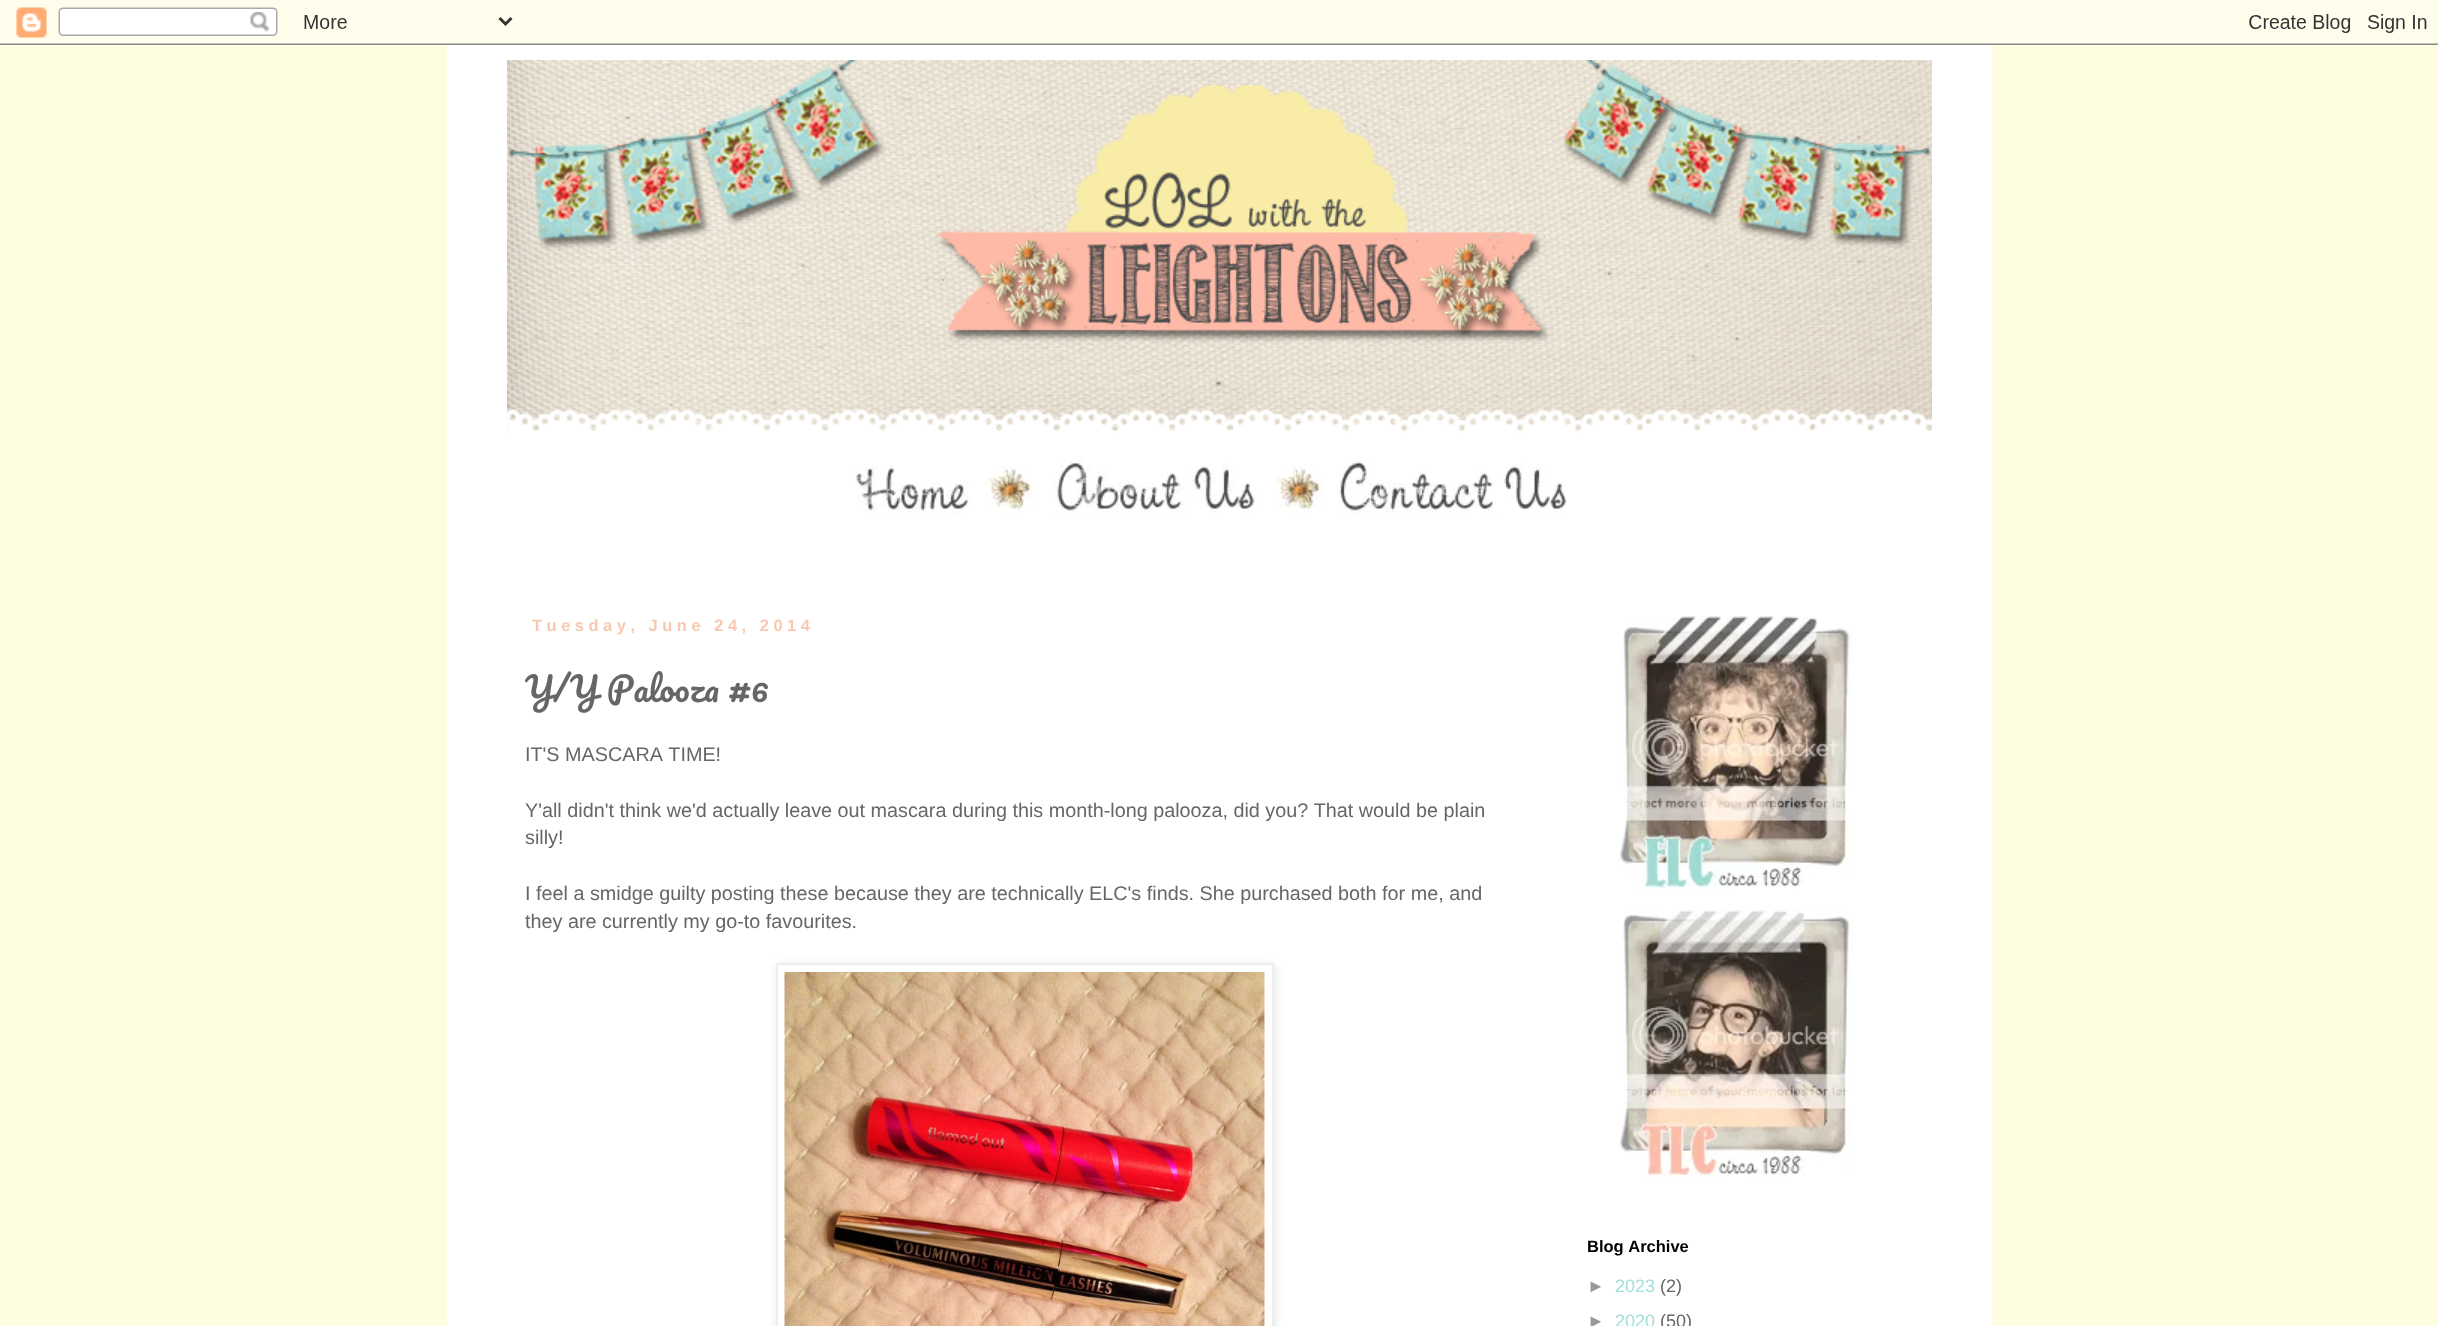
<!DOCTYPE html>
<meta charset="utf-8">
<style>body { margin: 0 } canvas { display: block }</style>
<canvas id="canvas" width="2438" height="1326"></canvas>
<img id="img1" src="images/1.png" hidden>
<img id="img2" src="images/2.png" hidden>
<img id="img3" src="images/3.png" hidden>
<img id="img4" src="images/4.png" hidden>
<img id="img5" src="images/5.png" hidden>
<img id="img6" src="images/6.png" hidden>
<img id="img7" src="images/7.png" hidden>
<img id="img8" src="images/8.png" hidden>
<img id="img9" src="images/9.png" hidden>
<img id="img10" src="images/10.png" hidden>
<script>
window.onload = function () {
    const canvas = document.getElementById('canvas');
    const context = canvas.getContext('2d');
    context.miterLimit = 4;
    context.fontKerning = 'none';

    context.fillStyle = 'rgb(255, 253, 225)';
    context.fillRect(0, 0, 2438, 1326);
    context.drawImage(document.getElementById('img1'), 0, 0, 2438, 45);
    context.fillStyle = 'rgb(255, 255, 255)';
    context.fillRect(447, 45, 1545, 1281);
    context.drawImage(document.getElementById('img2'), 507, 60, 1425, 375);
    context.drawImage(document.getElementById('img3'), 852, 465, 120, 48);
    context.drawImage(document.getElementById('img4'), 985, 465, 49, 48);
    context.drawImage(document.getElementById('img5'), 1053, 459, 204, 54);
    context.drawImage(document.getElementById('img6'), 1275, 465, 48, 48);
    context.drawImage(document.getElementById('img7'), 1339, 460, 228, 53);
    context.fillStyle = 'rgba(0, 0, 0, 0.1)';
    context.filter = 'blur(4px)';
    context.beginPath();
    context.rect(777, 965, 498, 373);
    context.fill();
    context.filter = 'none';
    context.fillStyle = 'rgb(255, 255, 255)';
    context.beginPath();
    context.rect(777, 964, 496, 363);
    context.fill();
    context.strokeStyle = 'rgb(238, 238, 238)';
    context.lineWidth = 2;
    context.stroke();
    context.drawImage(document.getElementById('img8'), 784, 972, 481, 354);
    context.drawImage(document.getElementById('img9'), 1619, 616, 233, 277);
    context.drawImage(document.getElementById('img10'), 1619, 910, 234, 269);
    context.letterSpacing = '4.5px';
    context.font = 'bold 16.5px Liberation Sans';
    context.fillStyle = 'rgb(248, 201, 176)';
    context.fillText('Tuesday, June 24, 2014', 532, 631);
    context.letterSpacing = '0px';
    context.font = '33px Pacifico';
    context.fillStyle = 'rgb(102, 102, 102)';
    context.fillText('Y/Y Palooza #6', 525, 702);
    context.font = '19.8px Liberation Sans';
    context.fillText('IT\'S MASCARA TIME!', 525, 761);
    context.fillText('Y\'all didn\'t think we\'d actually leave out mascara during this month-long palooza, did you? That would be plain', 525, 817);
    context.fillText('silly!', 525, 844);
    context.fillText('I feel a smidge guilty posting these because they are technically ELC\'s finds. She purchased both for me, and', 525, 900);
    context.fillText('they are currently my go-to favourites.', 525, 928);
    context.font = 'bold 16.5px Liberation Sans';
    context.fillStyle = 'rgb(0, 0, 0)';
    context.fillText('Blog Archive', 1587, 1252);
    context.font = '18px Liberation Sans';
    context.fillStyle = 'rgb(153, 153, 153)';
    context.fillText('►', 1587, 1292);
    context.fillStyle = 'rgb(161, 223, 218)';
    context.fillText('2023', 1615, 1292);
    context.fillStyle = 'rgb(102, 102, 102)';
    context.fillText('(2)', 1660, 1292);
    context.fillStyle = 'rgb(153, 153, 153)';
    context.fillText('►', 1587, 1327);
    context.fillStyle = 'rgb(161, 223, 218)';
    context.fillText('2020', 1615, 1327);
    context.fillStyle = 'rgb(102, 102, 102)';
    context.fillText('(50)', 1660, 1327);
};
</script>
